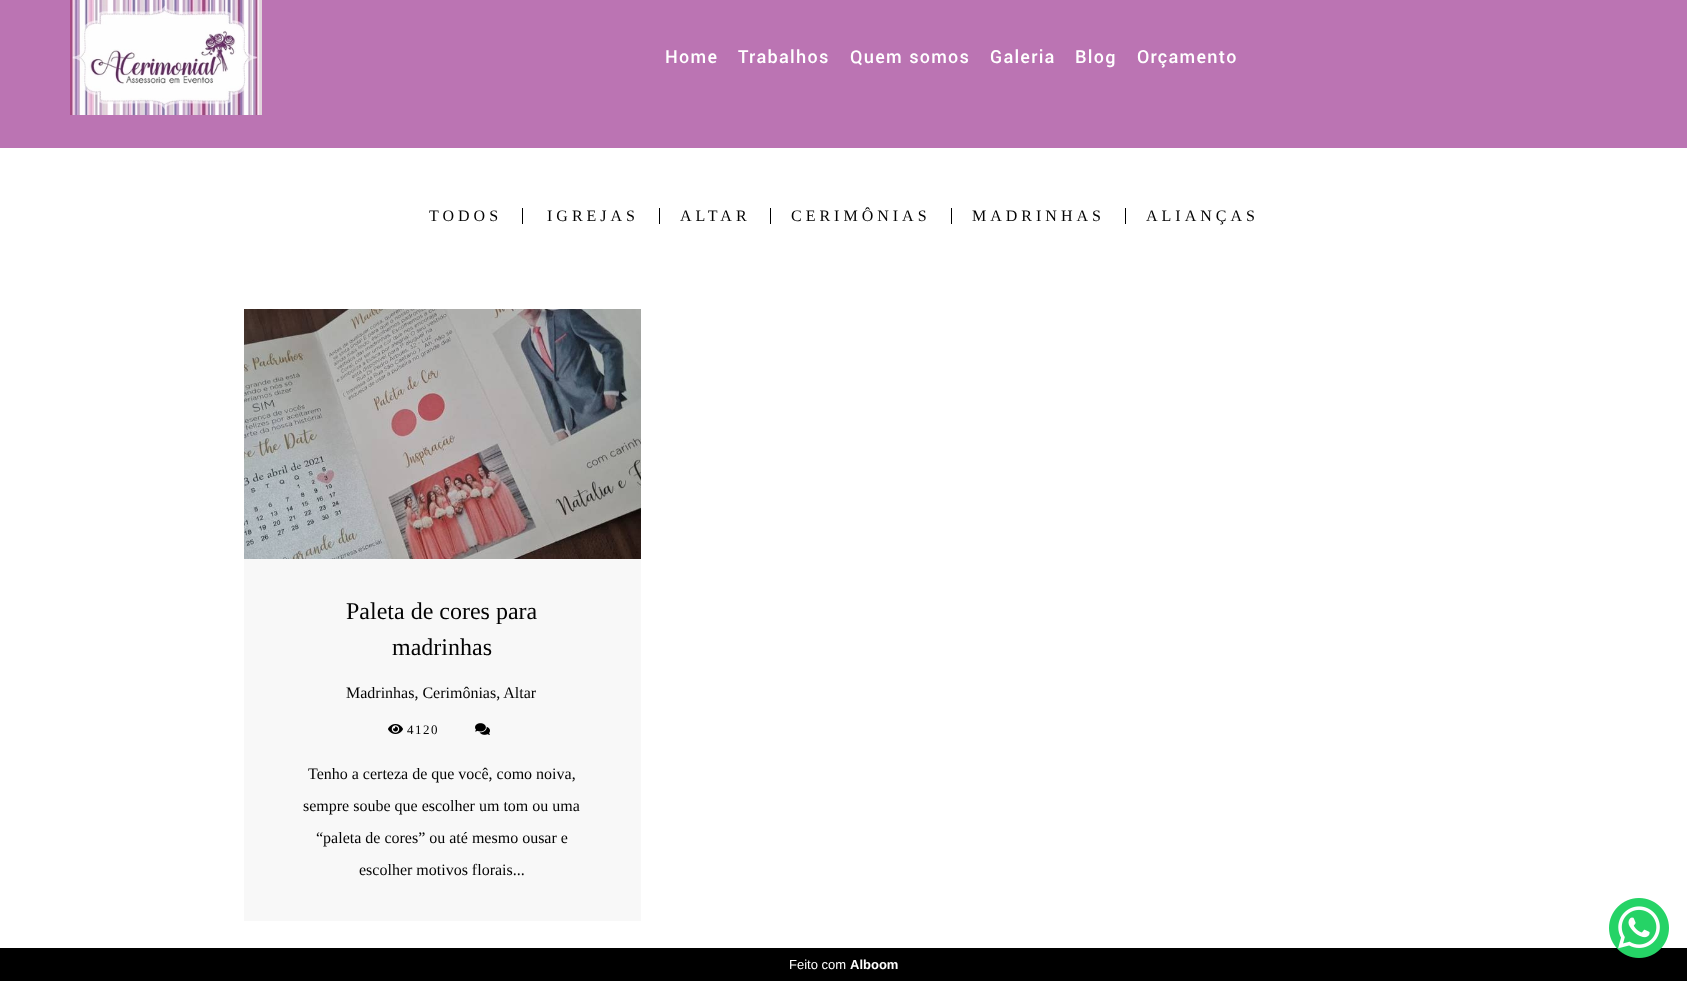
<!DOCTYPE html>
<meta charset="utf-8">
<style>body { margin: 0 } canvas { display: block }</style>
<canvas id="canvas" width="1687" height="981"></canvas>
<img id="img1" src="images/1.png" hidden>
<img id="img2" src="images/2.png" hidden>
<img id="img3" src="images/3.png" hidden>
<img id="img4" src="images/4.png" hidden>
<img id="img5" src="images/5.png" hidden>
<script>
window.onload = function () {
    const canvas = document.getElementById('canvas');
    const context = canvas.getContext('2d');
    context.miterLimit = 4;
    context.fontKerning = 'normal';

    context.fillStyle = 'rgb(255, 255, 255)';
    context.fillRect(0, 0, 1687, 981);
    context.fillStyle = 'rgb(187, 116, 179)';
    context.fillRect(0, 0, 1687, 148);
    context.drawImage(document.getElementById('img1'), 70, 0, 192, 115);
    context.fillStyle = 'rgb(0, 0, 0)';
    context.fillRect(522, 208, 1, 16);
    context.fillRect(659, 208, 1, 16);
    context.fillRect(770, 208, 1, 16);
    context.fillRect(951, 208, 1, 16);
    context.fillRect(1125, 208, 1, 16);
    context.drawImage(document.getElementById('img2'), 244, 309, 397, 250);
    context.fillStyle = 'rgb(248, 248, 248)';
    context.fillRect(244, 559, 397, 362);
    context.drawImage(document.getElementById('img3'), 388, 724, 15, 10);
    context.drawImage(document.getElementById('img4'), 475, 723, 15, 12);
    context.fillStyle = 'rgb(0, 0, 0)';
    context.fillRect(0, 948, 1687, 33);
    context.drawImage(document.getElementById('img5'), 1609, 898, 60, 60);
    context.letterSpacing = '1.25px';
    context.font = '500 20px Yantramanav';
    context.fillStyle = 'rgb(255, 255, 255)';
    context.fillText('Home', 665, 63);
    context.fillText('Trabalhos', 738, 63);
    context.fillText('Quem somos', 850, 63);
    context.fillText('Galeria', 990, 63);
    context.fillText('Blog', 1075, 63);
    context.fillText('Orçamento', 1137, 63);
    context.letterSpacing = '4px';
    context.font = '16px Liberation Serif';
    context.fillStyle = 'rgb(3, 3, 3)';
    context.fillText('TODOS', 429, 221);
    context.fillText('IGREJAS', 547, 221);
    context.fillText('ALTAR', 680, 221);
    context.fillText('CERIMÔNIAS', 791, 221);
    context.fillText('MADRINHAS', 972, 221);
    context.fillText('ALIANÇAS', 1146, 221);
    context.letterSpacing = '0px';
    context.font = '24px Liberation Serif';
    context.fillText('Paleta de cores para', 346, 619);
    context.fillText('madrinhas', 392, 655);
    context.font = '16px Liberation Serif';
    context.fillText('Madrinhas, Cerimônias, Altar', 346, 698);
    context.letterSpacing = '1.5px';
    context.font = '13px Liberation Serif';
    context.fillText('4120', 407, 734);
    context.letterSpacing = '0px';
    context.font = '16px Liberation Serif';
    context.fillText('Tenho a certeza de que você, como noiva,', 308, 779);
    context.fillText('sempre soube que escolher um tom ou uma', 303, 811);
    context.fillText('“paleta de cores” ou até mesmo ousar e', 316, 843);
    context.fillText('escolher motivos florais...', 359, 875);
    context.font = '13px Liberation Sans';
    context.fillStyle = 'rgb(255, 255, 255)';
    context.fillText('Feito com', 789, 969);
    context.font = 'bold 13px Liberation Sans';
    context.fillText('Alboom', 850, 969);
};
</script>
